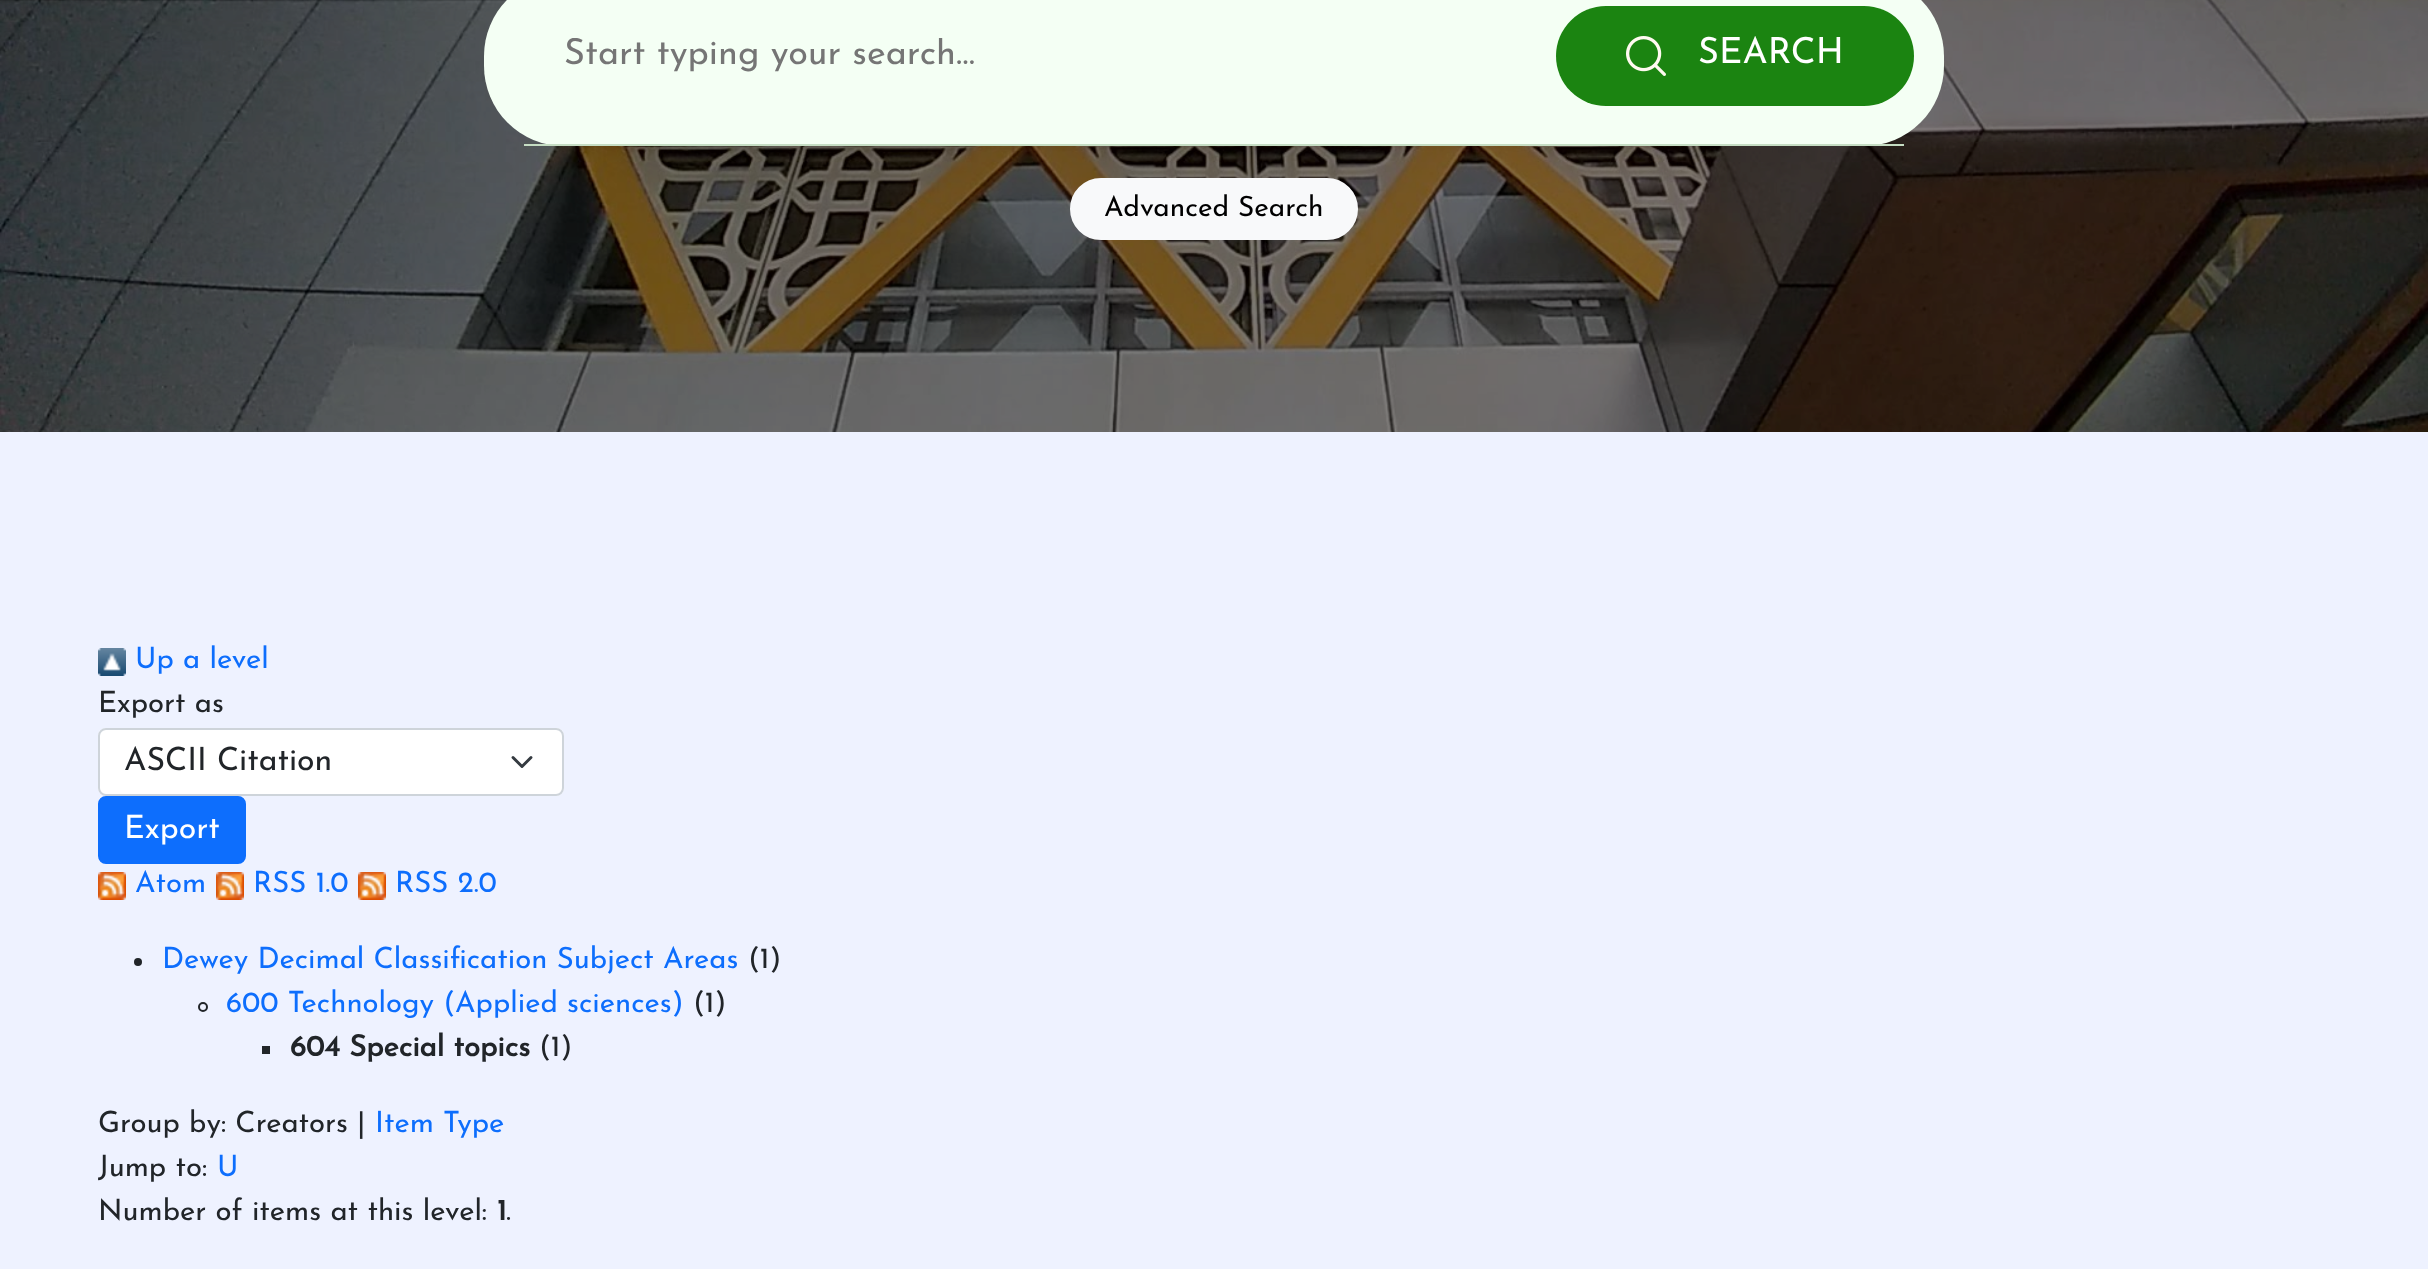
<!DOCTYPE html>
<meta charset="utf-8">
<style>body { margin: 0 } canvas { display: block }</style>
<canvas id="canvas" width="2428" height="1269"></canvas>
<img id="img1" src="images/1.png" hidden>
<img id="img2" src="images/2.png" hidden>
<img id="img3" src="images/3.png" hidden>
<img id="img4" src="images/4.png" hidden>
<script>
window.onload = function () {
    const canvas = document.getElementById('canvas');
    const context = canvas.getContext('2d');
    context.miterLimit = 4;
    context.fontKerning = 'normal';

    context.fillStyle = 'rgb(238, 242, 255)';
    context.fillRect(0, 0, 2428, 1269);
    context.drawImage(document.getElementById('img1'), 0, 0, 2428, 432);
    context.fillStyle = 'rgb(244, 255, 244)';
    context.beginPath();
    context.roundRect(484, -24, 1460, 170, 80);
    context.fill();
    context.fillStyle = 'rgb(197, 221, 195)';
    context.fillRect(524, 144, 1380, 2);
    context.fillStyle = 'rgb(27, 132, 17)';
    context.beginPath();
    context.roundRect(1556, 6, 358, 100, 50);
    context.fill();
    context.drawImage(document.getElementById('img2'), 1626, 36, 40, 40);
    context.fillStyle = 'rgb(248, 249, 250)';
    context.beginPath();
    context.roundRect(1071, 179, 286, 60, 30);
    context.fill();
    context.strokeStyle = 'rgb(248, 249, 250)';
    context.lineWidth = 2;
    context.stroke();
    context.drawImage(document.getElementById('img3'), 98, 648, 28, 28);
    context.fillStyle = 'rgb(255, 255, 255)';
    context.beginPath();
    context.roundRect(98, 728, 466, 68, 8);
    context.fill();
    context.beginPath();
    context.moveTo(513, 757.5);
    context.lineTo(522, 766.5);
    context.lineTo(531, 757.5);
    context.strokeStyle = 'rgb(52, 58, 64)';
    context.lineWidth = 3;
    context.lineCap = 'round';
    context.lineJoin = 'round';
    context.stroke();
    context.beginPath();
    context.roundRect(99, 729, 464, 66, 7);
    context.strokeStyle = 'rgb(206, 212, 218)';
    context.lineWidth = 2;
    context.lineJoin = 'miter';
    context.stroke();
    context.fillStyle = 'rgb(13, 110, 253)';
    context.beginPath();
    context.roundRect(99, 797, 146, 66, 7);
    context.fill();
    context.strokeStyle = 'rgb(13, 110, 253)';
    context.stroke();
    context.drawImage(document.getElementById('img4'), 98, 872, 28, 28);
    context.drawImage(document.getElementById('img4'), 216, 872, 28, 28);
    context.drawImage(document.getElementById('img4'), 358, 872, 28, 28);
    context.fillStyle = 'rgb(33, 37, 41)';
    context.beginPath();
    context.arc(138, 962, 4, 0, 2 * Math.PI);
    context.fill();
    context.beginPath();
    context.arc(203, 1007, 4, 0, 2 * Math.PI);
    context.strokeStyle = 'rgb(33, 37, 41)';
    context.stroke();
    context.fillRect(262, 1046, 8, 8);
    context.save();
    context.beginPath();
    context.rect(564, 38, 940, 36);
    context.clip();
    context.font = '100 36px Josefin Sans';
    context.fillStyle = 'rgb(117, 117, 117)';
    context.fillText('Start typing your search…', 564, 64);
    context.restore();
    context.font = '100 36px Josefin Sans';
    context.fillStyle = 'rgb(255, 255, 255)';
    context.fillText('SEARCH', 1698, 63);
    context.font = '100 28px Josefin Sans';
    context.fillStyle = 'rgb(0, 0, 0)';
    context.fillText('Advanced Search', 1104, 216);
    context.font = '100 29.3px Josefin Sans';
    context.fillStyle = 'rgb(13, 110, 253)';
    context.fillText('Up a level', 135, 668);
    context.fillStyle = 'rgb(33, 37, 41)';
    context.fillText('Export as', 98, 712);
    context.font = '100 32px Josefin Sans';
    context.fillText('ASCII Citation', 124, 770);
    context.fillStyle = 'rgb(255, 255, 255)';
    context.fillText('Export', 124, 838);
    context.font = '100 29.3px Josefin Sans';
    context.fillStyle = 'rgb(13, 110, 253)';
    context.fillText('Atom', 135, 892);
    context.fillText('RSS 1.0', 253, 892);
    context.fillText('RSS 2.0', 395, 892);
    context.fillText('Dewey Decimal Classification Subject Areas', 162, 968);
    context.fillStyle = 'rgb(33, 37, 41)';
    context.fillText('(1)', 748, 968);
    context.fillStyle = 'rgb(13, 110, 253)';
    context.fillText('600 Technology (Applied sciences)', 226, 1012);
    context.fillStyle = 'rgb(33, 37, 41)';
    context.fillText('(1)', 693, 1012);
    context.font = 'bold 29.3px Josefin Sans';
    context.fillText('604 Special topics', 290, 1056);
    context.font = '100 29.3px Josefin Sans';
    context.fillText('(1)', 539, 1056);
    context.fillText('Group by: Creators |', 98, 1132);
    context.fillStyle = 'rgb(13, 110, 253)';
    context.fillText('Item Type', 375, 1132);
    context.fillStyle = 'rgb(33, 37, 41)';
    context.fillText('Jump to:', 98, 1176);
    context.fillStyle = 'rgb(13, 110, 253)';
    context.fillText('U', 217, 1176);
    context.fillStyle = 'rgb(33, 37, 41)';
    context.fillText('Number of items at this level:', 98, 1220);
    context.font = 'bold 29.3px Josefin Sans';
    context.fillText('1', 497, 1220);
    context.font = '100 29.3px Josefin Sans';
    context.fillText('.', 506, 1220);
};
</script>
